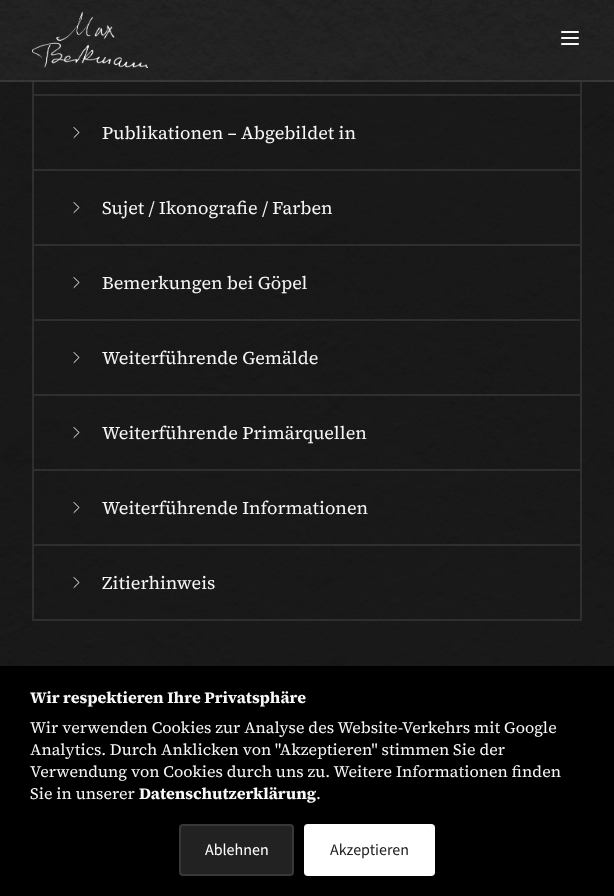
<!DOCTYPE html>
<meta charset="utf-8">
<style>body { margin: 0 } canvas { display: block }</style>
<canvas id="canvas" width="614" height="896"></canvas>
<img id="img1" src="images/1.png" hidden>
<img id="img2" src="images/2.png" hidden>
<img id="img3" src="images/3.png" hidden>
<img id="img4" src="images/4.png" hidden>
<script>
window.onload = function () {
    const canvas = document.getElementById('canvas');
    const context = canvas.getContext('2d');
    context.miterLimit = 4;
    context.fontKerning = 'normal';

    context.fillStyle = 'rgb(255, 255, 255)';
    context.fillRect(0, 0, 614, 896);
    context.drawImage(document.getElementById('img1'), 0, 82, 614, 584);
    context.fillStyle = 'rgba(248, 248, 248, 0.1)';
    context.beginPath();
    context.moveTo(582, 21);
    context.lineTo(582, 96);
    context.lineTo(580, 94);
    context.lineTo(580, 21);
    context.closePath();
    context.fill();
    context.beginPath();
    context.moveTo(582, 96);
    context.lineTo(32, 96);
    context.lineTo(34, 94);
    context.lineTo(580, 94);
    context.closePath();
    context.fill();
    context.beginPath();
    context.moveTo(32, 96);
    context.lineTo(32, 21);
    context.lineTo(34, 21);
    context.lineTo(34, 94);
    context.closePath();
    context.fill();
    context.drawImage(document.getElementById('img2'), 0, 0, 614, 82);
    context.fillStyle = 'rgba(255, 255, 255, 0.1)';
    context.fillRect(0, 80, 614, 2);
    context.drawImage(document.getElementById('img3'), 32, 12, 116, 56);
    context.drawImage(document.getElementById('img4'), 561, 31, 18, 14);
    context.fillStyle = 'rgba(248, 248, 248, 0.1)';
    context.beginPath();
    context.moveTo(582, 96);
    context.lineTo(582, 171);
    context.lineTo(580, 169);
    context.lineTo(580, 96);
    context.closePath();
    context.fill();
    context.beginPath();
    context.moveTo(582, 171);
    context.lineTo(32, 171);
    context.lineTo(34, 169);
    context.lineTo(580, 169);
    context.closePath();
    context.fill();
    context.beginPath();
    context.moveTo(32, 171);
    context.lineTo(32, 96);
    context.lineTo(34, 96);
    context.lineTo(34, 169);
    context.closePath();
    context.fill();
    context.beginPath();
    context.moveTo(74, 137.5);
    context.lineTo(79, 132.5);
    context.lineTo(74, 127.5);
    context.strokeStyle = 'rgb(248, 248, 248)';
    context.lineCap = 'round';
    context.lineJoin = 'round';
    context.stroke();
    context.beginPath();
    context.moveTo(582, 171);
    context.lineTo(582, 246);
    context.lineTo(580, 244);
    context.lineTo(580, 171);
    context.closePath();
    context.fill();
    context.beginPath();
    context.moveTo(582, 246);
    context.lineTo(32, 246);
    context.lineTo(34, 244);
    context.lineTo(580, 244);
    context.closePath();
    context.fill();
    context.beginPath();
    context.moveTo(32, 246);
    context.lineTo(32, 171);
    context.lineTo(34, 171);
    context.lineTo(34, 244);
    context.closePath();
    context.fill();
    context.beginPath();
    context.moveTo(74, 212.5);
    context.lineTo(79, 207.5);
    context.lineTo(74, 202.5);
    context.stroke();
    context.beginPath();
    context.moveTo(582, 246);
    context.lineTo(582, 321);
    context.lineTo(580, 319);
    context.lineTo(580, 246);
    context.closePath();
    context.fill();
    context.beginPath();
    context.moveTo(582, 321);
    context.lineTo(32, 321);
    context.lineTo(34, 319);
    context.lineTo(580, 319);
    context.closePath();
    context.fill();
    context.beginPath();
    context.moveTo(32, 321);
    context.lineTo(32, 246);
    context.lineTo(34, 246);
    context.lineTo(34, 319);
    context.closePath();
    context.fill();
    context.beginPath();
    context.moveTo(74, 287.5);
    context.lineTo(79, 282.5);
    context.lineTo(74, 277.5);
    context.stroke();
    context.beginPath();
    context.moveTo(582, 321);
    context.lineTo(582, 396);
    context.lineTo(580, 394);
    context.lineTo(580, 321);
    context.closePath();
    context.fill();
    context.beginPath();
    context.moveTo(582, 396);
    context.lineTo(32, 396);
    context.lineTo(34, 394);
    context.lineTo(580, 394);
    context.closePath();
    context.fill();
    context.beginPath();
    context.moveTo(32, 396);
    context.lineTo(32, 321);
    context.lineTo(34, 321);
    context.lineTo(34, 394);
    context.closePath();
    context.fill();
    context.beginPath();
    context.moveTo(74, 362.5);
    context.lineTo(79, 357.5);
    context.lineTo(74, 352.5);
    context.stroke();
    context.beginPath();
    context.moveTo(582, 396);
    context.lineTo(582, 471);
    context.lineTo(580, 469);
    context.lineTo(580, 396);
    context.closePath();
    context.fill();
    context.beginPath();
    context.moveTo(582, 471);
    context.lineTo(32, 471);
    context.lineTo(34, 469);
    context.lineTo(580, 469);
    context.closePath();
    context.fill();
    context.beginPath();
    context.moveTo(32, 471);
    context.lineTo(32, 396);
    context.lineTo(34, 396);
    context.lineTo(34, 469);
    context.closePath();
    context.fill();
    context.beginPath();
    context.moveTo(74, 437.5);
    context.lineTo(79, 432.5);
    context.lineTo(74, 427.5);
    context.stroke();
    context.beginPath();
    context.moveTo(582, 471);
    context.lineTo(582, 546);
    context.lineTo(580, 544);
    context.lineTo(580, 471);
    context.closePath();
    context.fill();
    context.beginPath();
    context.moveTo(582, 546);
    context.lineTo(32, 546);
    context.lineTo(34, 544);
    context.lineTo(580, 544);
    context.closePath();
    context.fill();
    context.beginPath();
    context.moveTo(32, 546);
    context.lineTo(32, 471);
    context.lineTo(34, 471);
    context.lineTo(34, 544);
    context.closePath();
    context.fill();
    context.beginPath();
    context.moveTo(74, 512.5);
    context.lineTo(79, 507.5);
    context.lineTo(74, 502.5);
    context.stroke();
    context.beginPath();
    context.moveTo(582, 546);
    context.lineTo(582, 621);
    context.lineTo(580, 619);
    context.lineTo(580, 546);
    context.closePath();
    context.fill();
    context.beginPath();
    context.moveTo(582, 621);
    context.lineTo(32, 621);
    context.lineTo(34, 619);
    context.lineTo(580, 619);
    context.closePath();
    context.fill();
    context.beginPath();
    context.moveTo(32, 621);
    context.lineTo(32, 546);
    context.lineTo(34, 546);
    context.lineTo(34, 619);
    context.closePath();
    context.fill();
    context.beginPath();
    context.moveTo(74, 587.5);
    context.lineTo(79, 582.5);
    context.lineTo(74, 577.5);
    context.stroke();
    context.fillStyle = 'rgb(0, 0, 0)';
    context.fillRect(0, 666, 614, 230);
    context.fillStyle = 'rgb(34, 34, 34)';
    context.beginPath();
    context.roundRect(179, 824, 115, 52, 4);
    context.fill();
    context.beginPath();
    context.roundRect(180, 825, 113, 50, 3);
    context.strokeStyle = 'rgba(255, 255, 255, 0.1)';
    context.lineWidth = 2;
    context.lineJoin = 'miter';
    context.stroke();
    context.fillStyle = 'rgb(255, 255, 255)';
    context.beginPath();
    context.roundRect(304, 824, 131, 52, 4);
    context.fill();
    context.beginPath();
    context.roundRect(305, 825, 129, 50, 3);
    context.stroke();
    context.font = '18px "Source Serif 4"';
    context.fillStyle = 'rgb(248, 248, 248)';
    context.fillText('Publikationen – Abgebildet in', 102, 139);
    context.fillText('Sujet / Ikonografie / Farben', 102, 214);
    context.fillText('Bemerkungen bei Göpel', 102, 289);
    context.fillText('Weiterführende Gemälde', 102, 364);
    context.fillText('Weiterführende Primärquellen', 102, 439);
    context.fillText('Weiterführende Informationen', 102, 514);
    context.fillText('Zitierhinweis', 102, 589);
    context.font = 'bold 16px "Source Serif 4"';
    context.fillText('Wir respektieren Ihre Privatsphäre', 30, 703);
    context.font = '16px "Source Serif 4"';
    context.fillText('Wir verwenden Cookies zur Analyse des Website-Verkehrs mit Google', 30, 733);
    context.fillText('Analytics. Durch Anklicken von "Akzeptieren" stimmen Sie der', 30, 755);
    context.fillText('Verwendung von Cookies durch uns zu. Weitere Informationen finden', 30, 777);
    context.fillText('Sie in unserer', 30, 799);
    context.font = 'bold 16px "Source Serif 4"';
    context.fillText('Datenschutzerklärung', 139, 799);
    context.font = '16px "Source Serif 4"';
    context.fillText('.', 316, 799);
    context.font = '16px "Source Sans 3"';
    context.fillStyle = 'rgb(255, 255, 255)';
    context.fillText('Ablehnen', 205, 855);
    context.fillStyle = 'rgb(34, 34, 34)';
    context.fillText('Akzeptieren', 330, 855);
};
</script>
